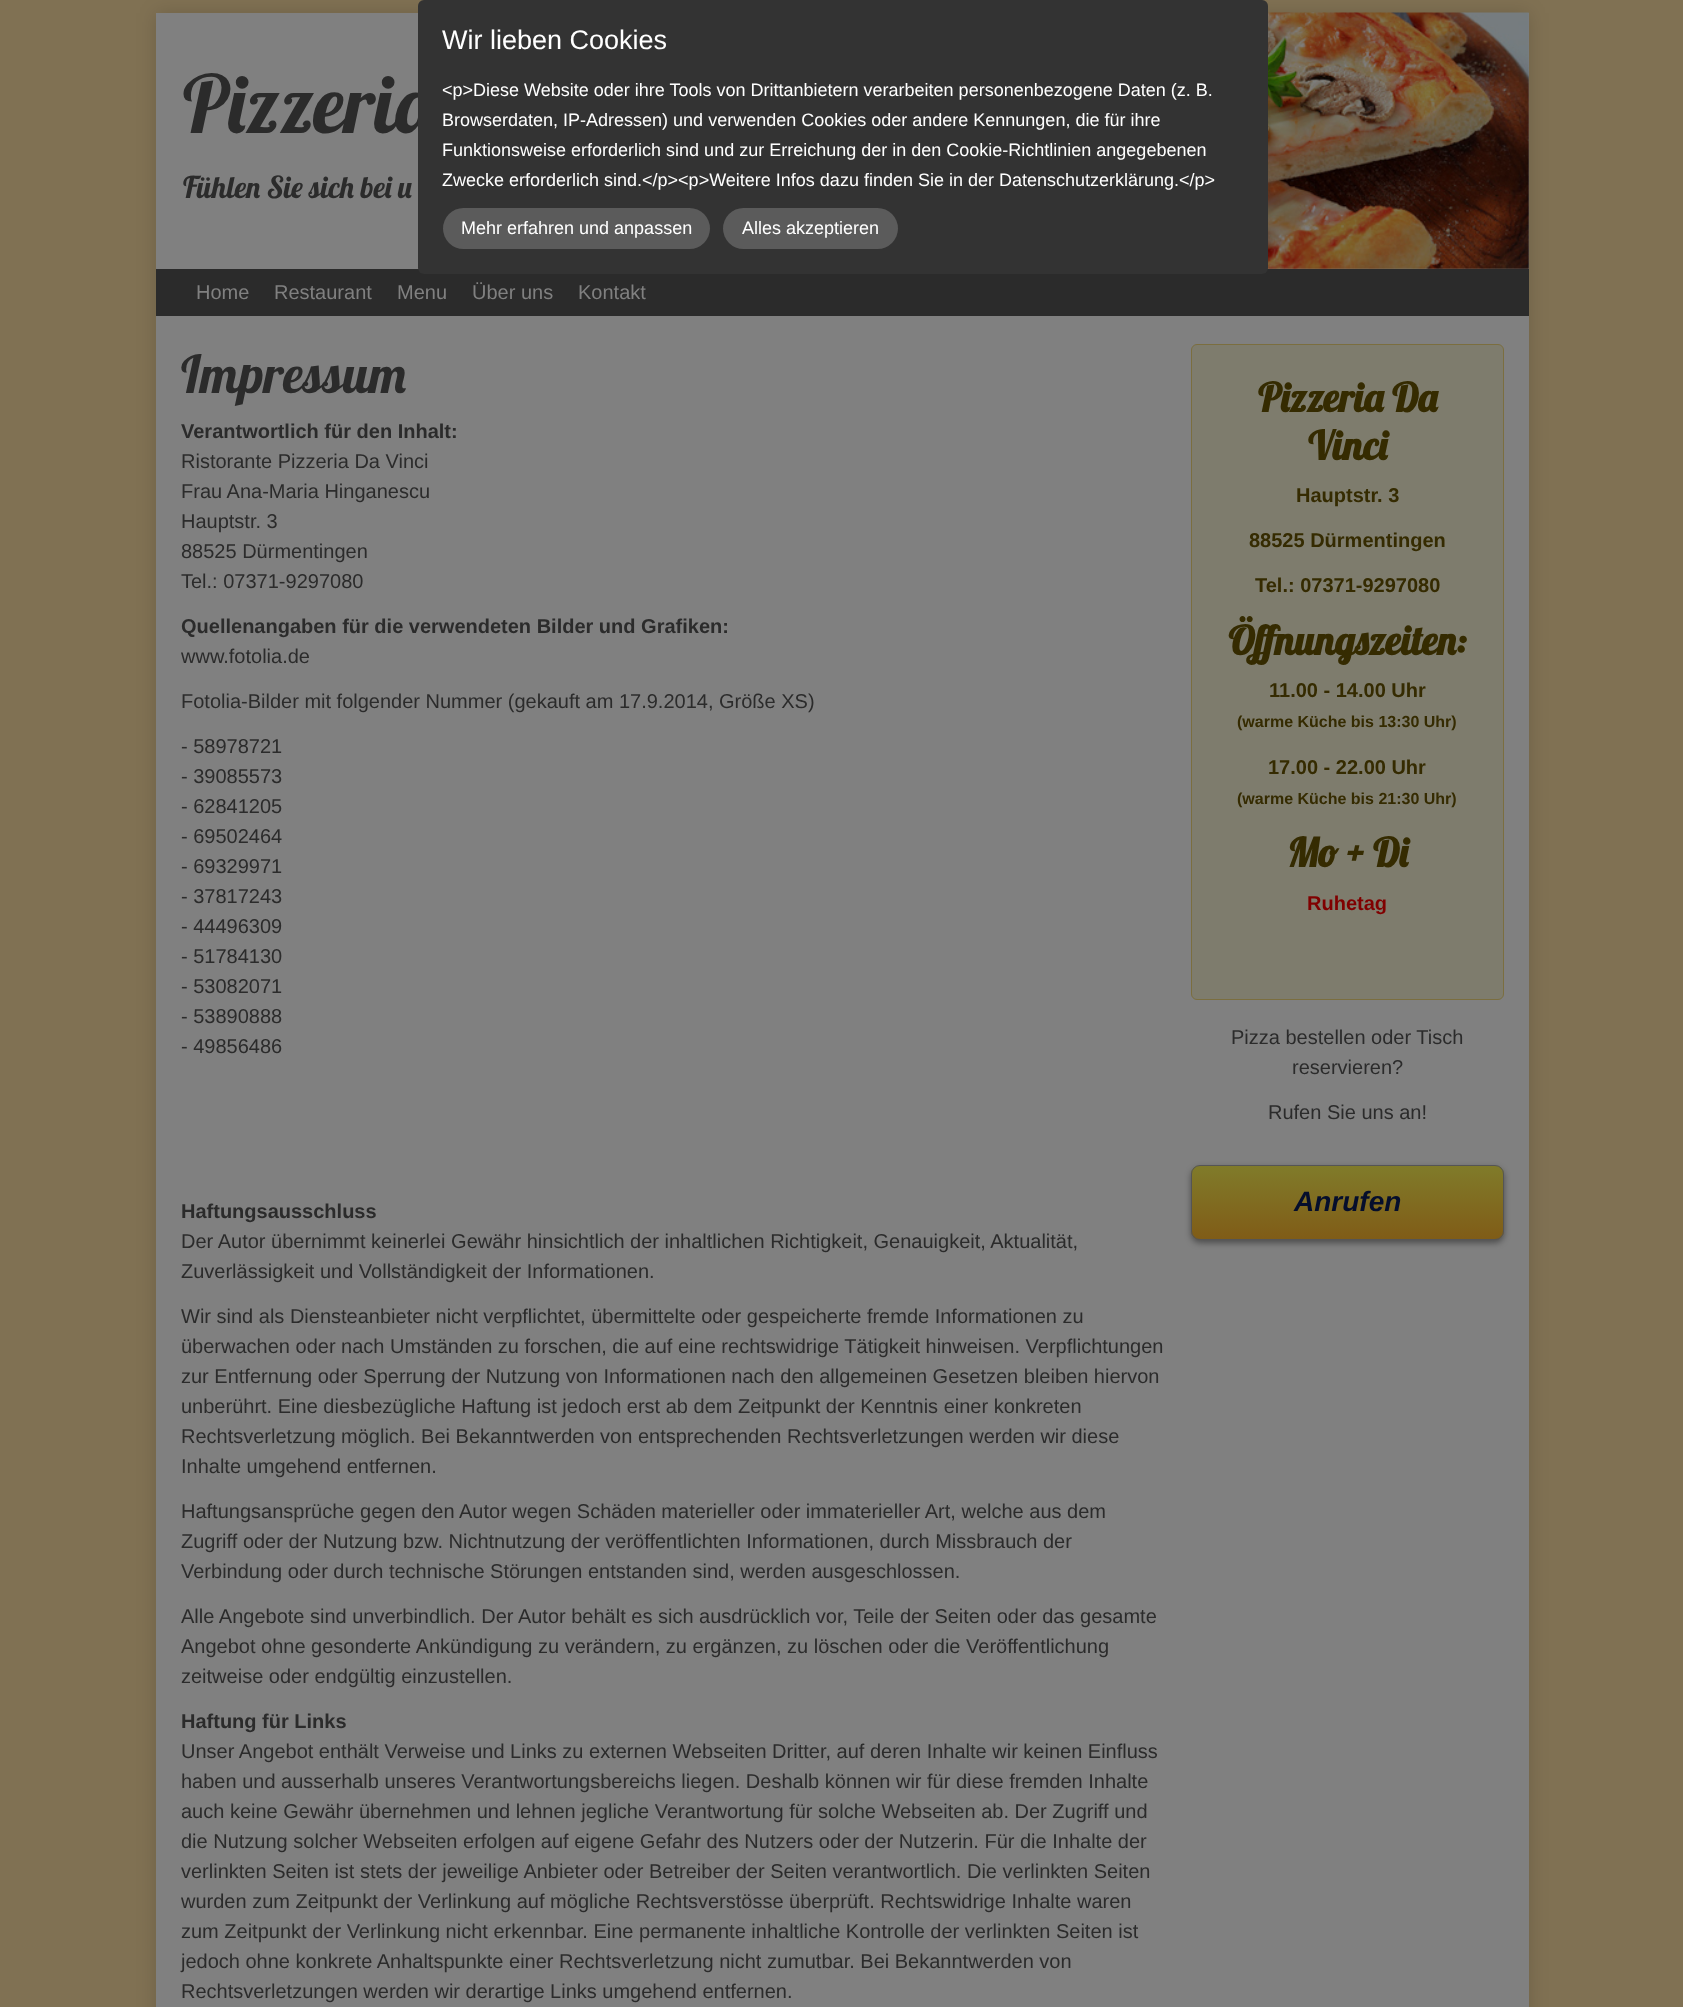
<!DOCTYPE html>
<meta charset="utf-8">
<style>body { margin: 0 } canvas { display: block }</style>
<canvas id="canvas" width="1683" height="2007"></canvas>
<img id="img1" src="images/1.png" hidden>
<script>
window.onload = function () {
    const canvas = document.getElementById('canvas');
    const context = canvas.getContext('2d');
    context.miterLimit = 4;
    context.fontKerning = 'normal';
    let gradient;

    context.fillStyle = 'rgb(128, 113, 83)';
    context.fillRect(0, 0, 1683, 2007);
    context.fillStyle = 'rgba(0, 0, 0, 0.15)';
    context.filter = 'blur(9.5px)';
    context.beginPath();
    context.rect(156, 13, 1373, 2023);
    context.fill();
    context.filter = 'none';
    context.fillStyle = 'rgb(128, 128, 128)';
    context.fillRect(156, 13, 1373, 256);
    context.drawImage(document.getElementById('img1'), 1267, 12, 262, 257);
    context.fillStyle = 'rgb(43, 43, 43)';
    context.fillRect(156, 269, 1373, 47);
    context.fillStyle = 'rgb(128, 128, 128)';
    context.fillRect(156, 316, 1373, 1691);
    context.fillStyle = 'rgb(126, 124, 109)';
    context.beginPath();
    context.roundRect(1191.5, 344.5, 312, 655, 5.5);
    context.fill();
    context.strokeStyle = 'rgb(123, 110, 63)';
    context.stroke();
    context.fillStyle = 'rgba(0, 0, 0, 0.4)';
    context.filter = 'blur(3px)';
    context.beginPath();
    context.roundRect(1191, 1168, 313, 75, 9);
    context.fill();
    context.filter = 'none';
    context.save();
    context.beginPath();
    context.roundRect(1191, 1165, 313, 75, 9);
    context.clip();
    gradient = context.createLinearGradient(1348, 1166, 1348, 1239);
    gradient.addColorStop(0, 'rgb(128, 123, 42)');
    gradient.addColorStop(1, 'rgb(128, 92, 23)');
    context.fillStyle = gradient;
    context.fillRect(1191, 1166, 313, 73);
    context.restore();
    context.beginPath();
    context.roundRect(1191.5, 1165.5, 312, 74, 8.5);
    context.strokeStyle = 'rgb(85, 85, 85)';
    context.stroke();
    context.font = '80px Lobster';
    context.fillStyle = 'rgb(43, 43, 43)';
    context.fillText('Pizzeria', 183, 133);
    context.fillStyle = 'rgb(51, 51, 51)';
    context.beginPath();
    context.roundRect(418, 0, 850, 274, 6);
    context.fill();
    context.fillStyle = 'rgb(91, 91, 91)';
    context.beginPath();
    context.roundRect(443, 208, 267, 41, 20.5);
    context.fill();
    context.font = '18px Liberation Sans';
    context.fillStyle = 'rgb(255, 255, 255)';
    context.fillText('Mehr erfahren und anpassen', 461, 234);
    context.fillStyle = 'rgb(91, 91, 91)';
    context.beginPath();
    context.roundRect(723, 208, 175, 41, 20.5);
    context.fill();
    context.fillStyle = 'rgb(255, 255, 255)';
    context.fillText('Alles akzeptieren', 742, 234);
    context.fillText('Zwecke erforderlich sind.<\/p><p>Weitere Infos dazu finden Sie in der Datenschutzerklärung.<\/p>', 442, 186);
    context.fillText('Funktionsweise erforderlich sind und zur Erreichung der in den Cookie-Richtlinien angegebenen', 442, 156);
    context.fillText('Browserdaten, IP-Adressen) und verwenden Cookies oder andere Kennungen, die für ihre', 442, 126);
    context.fillText('<p>Diese Website oder ihre Tools von Drittanbietern verarbeiten personenbezogene Daten (z. B.', 442, 96);
    context.font = '27px Liberation Sans';
    context.fillText('Wir lieben Cookies', 442, 49);
    context.font = '30px Lobster';
    context.fillStyle = 'rgb(43, 43, 43)';
    context.fillText('Fühlen Sie sich bei u', 183, 198);
    context.font = '20px Liberation Sans';
    context.fillStyle = 'rgb(128, 128, 128)';
    context.fillText('Home', 196, 299);
    context.fillText('Restaurant', 274, 299);
    context.fillText('Menu', 397, 299);
    context.fillText('Über uns', 472, 299);
    context.fillText('Kontakt', 578, 299);
    context.font = '52px Lobster';
    context.fillStyle = 'rgb(43, 43, 43)';
    context.fillText('Impressum', 181, 393);
    context.font = 'bold 20px Liberation Sans';
    context.fillText('Verantwortlich für den Inhalt:', 181, 438);
    context.font = '20px Liberation Sans';
    context.fillText('Ristorante Pizzeria Da Vinci', 181, 468);
    context.fillText('Frau Ana-Maria Hinganescu', 181, 498);
    context.fillText('Hauptstr. 3', 181, 528);
    context.fillText('88525 Dürmentingen', 181, 558);
    context.fillText('Tel.: 07371-9297080', 181, 588);
    context.font = 'bold 20px Liberation Sans';
    context.fillText('Quellenangaben für die verwendeten Bilder und Grafiken:', 181, 633);
    context.font = '20px Liberation Sans';
    context.fillText('www.fotolia.de', 181, 663);
    context.fillText('Fotolia-Bilder mit folgender Nummer (gekauft am 17.9.2014, Größe XS)', 181, 708);
    context.fillText('- 58978721', 181, 753);
    context.fillText('- 39085573', 181, 783);
    context.fillText('- 62841205', 181, 813);
    context.fillText('- 69502464', 181, 843);
    context.fillText('- 69329971', 181, 873);
    context.fillText('- 37817243', 181, 903);
    context.fillText('- 44496309', 181, 933);
    context.fillText('- 51784130', 181, 963);
    context.fillText('- 53082071', 181, 993);
    context.fillText('- 53890888', 181, 1023);
    context.fillText('- 49856486', 181, 1053);
    context.font = 'bold 20px Liberation Sans';
    context.fillText('Haftungsausschluss', 181, 1218);
    context.font = '20px Liberation Sans';
    context.fillText('Der Autor übernimmt keinerlei Gewähr hinsichtlich der inhaltlichen Richtigkeit, Genauigkeit, Aktualität,', 181, 1248);
    context.fillText('Zuverlässigkeit und Vollständigkeit der Informationen.', 181, 1278);
    context.fillText('Wir sind als Diensteanbieter nicht verpflichtet, übermittelte oder gespeicherte fremde Informationen zu', 181, 1323);
    context.fillText('überwachen oder nach Umständen zu forschen, die auf eine rechtswidrige Tätigkeit hinweisen. Verpflichtungen', 181, 1353);
    context.fillText('zur Entfernung oder Sperrung der Nutzung von Informationen nach den allgemeinen Gesetzen bleiben hiervon', 181, 1383);
    context.fillText('unberührt. Eine diesbezügliche Haftung ist jedoch erst ab dem Zeitpunkt der Kenntnis einer konkreten', 181, 1413);
    context.fillText('Rechtsverletzung möglich. Bei Bekanntwerden von entsprechenden Rechtsverletzungen werden wir diese', 181, 1443);
    context.fillText('Inhalte umgehend entfernen.', 181, 1473);
    context.fillText('Haftungsansprüche gegen den Autor wegen Schäden materieller oder immaterieller Art, welche aus dem', 181, 1518);
    context.fillText('Zugriff oder der Nutzung bzw. Nichtnutzung der veröffentlichten Informationen, durch Missbrauch der', 181, 1548);
    context.fillText('Verbindung oder durch technische Störungen entstanden sind, werden ausgeschlossen.', 181, 1578);
    context.fillText('Alle Angebote sind unverbindlich. Der Autor behält es sich ausdrücklich vor, Teile der Seiten oder das gesamte', 181, 1623);
    context.fillText('Angebot ohne gesonderte Ankündigung zu verändern, zu ergänzen, zu löschen oder die Veröffentlichung', 181, 1653);
    context.fillText('zeitweise oder endgültig einzustellen.', 181, 1683);
    context.font = 'bold 20px Liberation Sans';
    context.fillText('Haftung für Links', 181, 1728);
    context.font = '20px Liberation Sans';
    context.fillText('Unser Angebot enthält Verweise und Links zu externen Webseiten Dritter, auf deren Inhalte wir keinen Einfluss', 181, 1758);
    context.fillText('haben und ausserhalb unseres Verantwortungsbereichs liegen. Deshalb können wir für diese fremden Inhalte', 181, 1788);
    context.fillText('auch keine Gewähr übernehmen und lehnen jegliche Verantwortung für solche Webseiten ab. Der Zugriff und', 181, 1818);
    context.fillText('die Nutzung solcher Webseiten erfolgen auf eigene Gefahr des Nutzers oder der Nutzerin. Für die Inhalte der', 181, 1848);
    context.fillText('verlinkten Seiten ist stets der jeweilige Anbieter oder Betreiber der Seiten verantwortlich. Die verlinkten Seiten', 181, 1878);
    context.fillText('wurden zum Zeitpunkt der Verlinkung auf mögliche Rechtsverstösse überprüft. Rechtswidrige Inhalte waren', 181, 1908);
    context.fillText('zum Zeitpunkt der Verlinkung nicht erkennbar. Eine permanente inhaltliche Kontrolle der verlinkten Seiten ist', 181, 1938);
    context.fillText('jedoch ohne konkrete Anhaltspunkte einer Rechtsverletzung nicht zumutbar. Bei Bekanntwerden von', 181, 1968);
    context.fillText('Rechtsverletzungen werden wir derartige Links umgehend entfernen.', 181, 1998);
    context.font = 'bold 40px Lobster';
    context.fillStyle = 'rgb(53, 43, 1)';
    context.fillText('Pizzeria Da', 1258, 412);
    context.fillText('Vinci', 1308, 460);
    context.font = 'bold 20px Liberation Sans';
    context.fillText('Hauptstr. 3', 1296, 502);
    context.fillText('88525 Dürmentingen', 1249, 547);
    context.fillText('Tel.: 07371-9297080', 1255, 592);
    context.font = 'bold 40px Lobster';
    context.fillText('Öffnungszeiten:', 1228, 655);
    context.font = 'bold 20px Liberation Sans';
    context.fillText('11.00 - 14.00 Uhr', 1269, 697);
    context.font = 'bold 16px Liberation Sans';
    context.fillText('(warme Küche bis 13:30 Uhr)', 1237, 727);
    context.font = 'bold 20px Liberation Sans';
    context.fillText('17.00 - 22.00 Uhr', 1268, 774);
    context.font = 'bold 16px Liberation Sans';
    context.fillText('(warme Küche bis 21:30 Uhr)', 1237, 804);
    context.font = 'bold 40px Lobster';
    context.fillText('Mo + Di', 1287, 867);
    context.font = 'bold 20px Liberation Sans';
    context.fillStyle = 'rgb(128, 0, 0)';
    context.fillText('Ruhetag', 1307, 910);
    context.font = '20px Liberation Sans';
    context.fillStyle = 'rgb(43, 43, 43)';
    context.fillText('Pizza bestellen oder Tisch', 1231, 1044);
    context.fillText('reservieren?', 1292, 1074);
    context.fillText('Rufen Sie uns an!', 1268, 1119);
    context.font = 'italic bold 28px Liberation Sans';
    context.fillStyle = 'rgb(5, 14, 44)';
    context.fillText('Anrufen', 1294, 1211);
};
</script>
